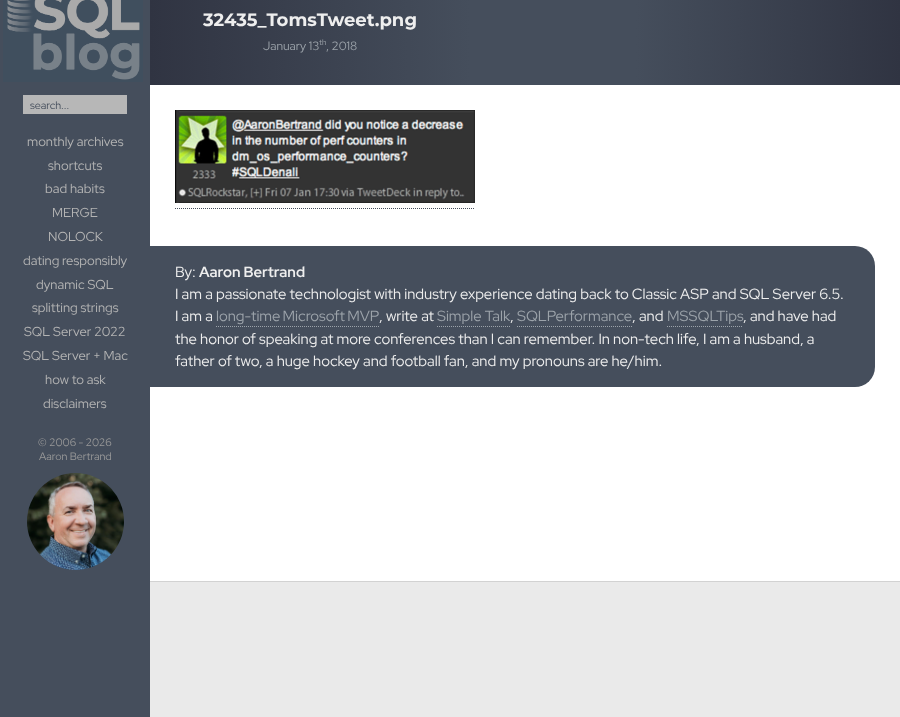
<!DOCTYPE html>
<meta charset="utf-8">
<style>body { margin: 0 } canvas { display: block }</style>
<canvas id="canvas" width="900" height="717"></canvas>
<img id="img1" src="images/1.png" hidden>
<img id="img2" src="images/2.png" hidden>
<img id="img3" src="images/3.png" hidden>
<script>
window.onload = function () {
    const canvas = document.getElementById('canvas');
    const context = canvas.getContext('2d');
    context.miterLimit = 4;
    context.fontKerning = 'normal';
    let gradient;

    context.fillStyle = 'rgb(234, 234, 234)';
    context.fillRect(0, 0, 900, 717);
    context.fillStyle = 'rgba(0, 0, 0, 0.1)';
    context.filter = 'blur(0.5px)';
    context.beginPath();
    context.rect(150, -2, 750, 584);
    context.fill();
    context.filter = 'none';
    context.fillStyle = 'rgb(69, 78, 92)';
    context.fillRect(0, 0, 150, 717);
    context.drawImage(document.getElementById('img1'), 3, 0, 140, 82);
    context.fillStyle = 'rgb(183, 183, 183)';
    context.fillRect(23, 95, 104, 19);
    context.drawImage(document.getElementById('img2'), 27, 473, 97, 97);
    context.fillStyle = 'rgb(255, 255, 255)';
    context.fillRect(150, 85, 750, 496);
    gradient = context.createLinearGradient(470, 33, 150, 33);
    gradient.addColorStop(0, 'rgb(69, 78, 92)');
    gradient.addColorStop(1, 'rgb(48, 52, 66)');
    context.fillStyle = gradient;
    context.fillRect(150, 0, 320, 85);
    context.fillStyle = 'rgb(69, 78, 92)';
    context.fillRect(470, 0, 166, 85);
    gradient = context.createLinearGradient(636, 33, 900, 33);
    gradient.addColorStop(0, 'rgb(69, 78, 92)');
    gradient.addColorStop(1, 'rgb(48, 52, 66)');
    context.fillStyle = gradient;
    context.fillRect(636, 0, 264, 85);
    context.drawImage(document.getElementById('img3'), 175, 110, 300, 93);
    context.beginPath();
    context.moveTo(175, 208.5);
    context.lineTo(475, 208.5);
    context.strokeStyle = 'rgb(69, 78, 92)';
    context.setLineDash([1, 1]);
    context.stroke();
    context.fillStyle = 'rgb(69, 78, 92)';
    context.beginPath();
    context.roundRect(150, 246, 725, 141, [0, 20, 20, 0]);
    context.fill();
    context.beginPath();
    context.moveTo(216, 326.5);
    context.lineTo(379, 326.5);
    context.strokeStyle = 'rgb(156, 163, 170)';
    context.stroke();
    context.beginPath();
    context.moveTo(437, 326.5);
    context.lineTo(510, 326.5);
    context.stroke();
    context.beginPath();
    context.moveTo(517, 326.5);
    context.lineTo(632, 326.5);
    context.stroke();
    context.beginPath();
    context.moveTo(667, 326.5);
    context.lineTo(743, 326.5);
    context.stroke();
    context.font = '10.75px Red Hat Display';
    context.fillText('search...', 30, 109);
    context.font = '13px Red Hat Display';
    context.fillStyle = 'rgb(180, 180, 180)';
    context.fillText('monthly archives', 27, 146);
    context.fillText('shortcuts', 48, 170);
    context.fillText('bad habits', 45, 193);
    context.fillText('MERGE', 52, 217);
    context.fillText('NOLOCK', 48, 241);
    context.fillText('dating responsibly', 23, 265);
    context.fillText('dynamic SQL', 36, 289);
    context.fillText('splitting strings', 32, 312);
    context.fillText('SQL Server 2022', 24, 336);
    context.fillText('SQL Server + Mac', 23, 360);
    context.fillText('how to ask', 45, 384);
    context.fillText('disclaimers', 43, 408);
    context.font = '10.75px Red Hat Display';
    context.fillStyle = 'rgb(153, 153, 153)';
    context.fillText('© 2006 - 2026', 38, 446);
    context.fillText('Aaron Bertrand', 39, 460);
    context.font = 'bold 18px Montserrat';
    context.fillStyle = 'rgb(238, 238, 238)';
    context.fillText('32435_TomsTweet.png', 203, 26);
    context.font = '12px Red Hat Display';
    context.fillStyle = 'rgb(156, 163, 170)';
    context.fillText('January 13', 263, 50);
    context.font = '8px Red Hat Display';
    context.fillText('th', 319, 45);
    context.font = '12px Red Hat Display';
    context.fillText(', 2018', 326, 50);
    context.font = '14.8px Red Hat Display';
    context.fillStyle = 'rgb(238, 238, 238)';
    context.fillText('By:', 175, 277);
    context.font = 'bold 14.8px Red Hat Display';
    context.fillText('Aaron Bertrand', 199, 277);
    context.font = '14.8px Red Hat Display';
    context.fillText('I am a passionate technologist with industry experience dating back to Classic ASP and SQL Server 6.5.', 175, 299);
    context.fillText('I am a', 175, 321);
    context.wordSpacing = '-1px';
    context.fillStyle = 'rgb(156, 163, 170)';
    context.fillText('long-time Microsoft MVP', 216, 321);
    context.wordSpacing = '0px';
    context.fillStyle = 'rgb(238, 238, 238)';
    context.fillText(', write at', 379, 321);
    context.fillStyle = 'rgb(156, 163, 170)';
    context.fillText('Simple Talk', 437, 321);
    context.fillStyle = 'rgb(238, 238, 238)';
    context.fillText(',', 510, 321);
    context.fillStyle = 'rgb(156, 163, 170)';
    context.fillText('SQLPerformance', 517, 321);
    context.fillStyle = 'rgb(238, 238, 238)';
    context.fillText(', and', 632, 321);
    context.fillStyle = 'rgb(156, 163, 170)';
    context.fillText('MSSQLTips', 667, 321);
    context.fillStyle = 'rgb(238, 238, 238)';
    context.fillText(', and have had', 743, 321);
    context.fillText('the honor of speaking at more conferences than I can remember. In non-tech life, I am a husband, a', 175, 344);
    context.fillText('father of two, a huge hockey and football fan, and my pronouns are he/him.', 175, 366);
};
</script>
